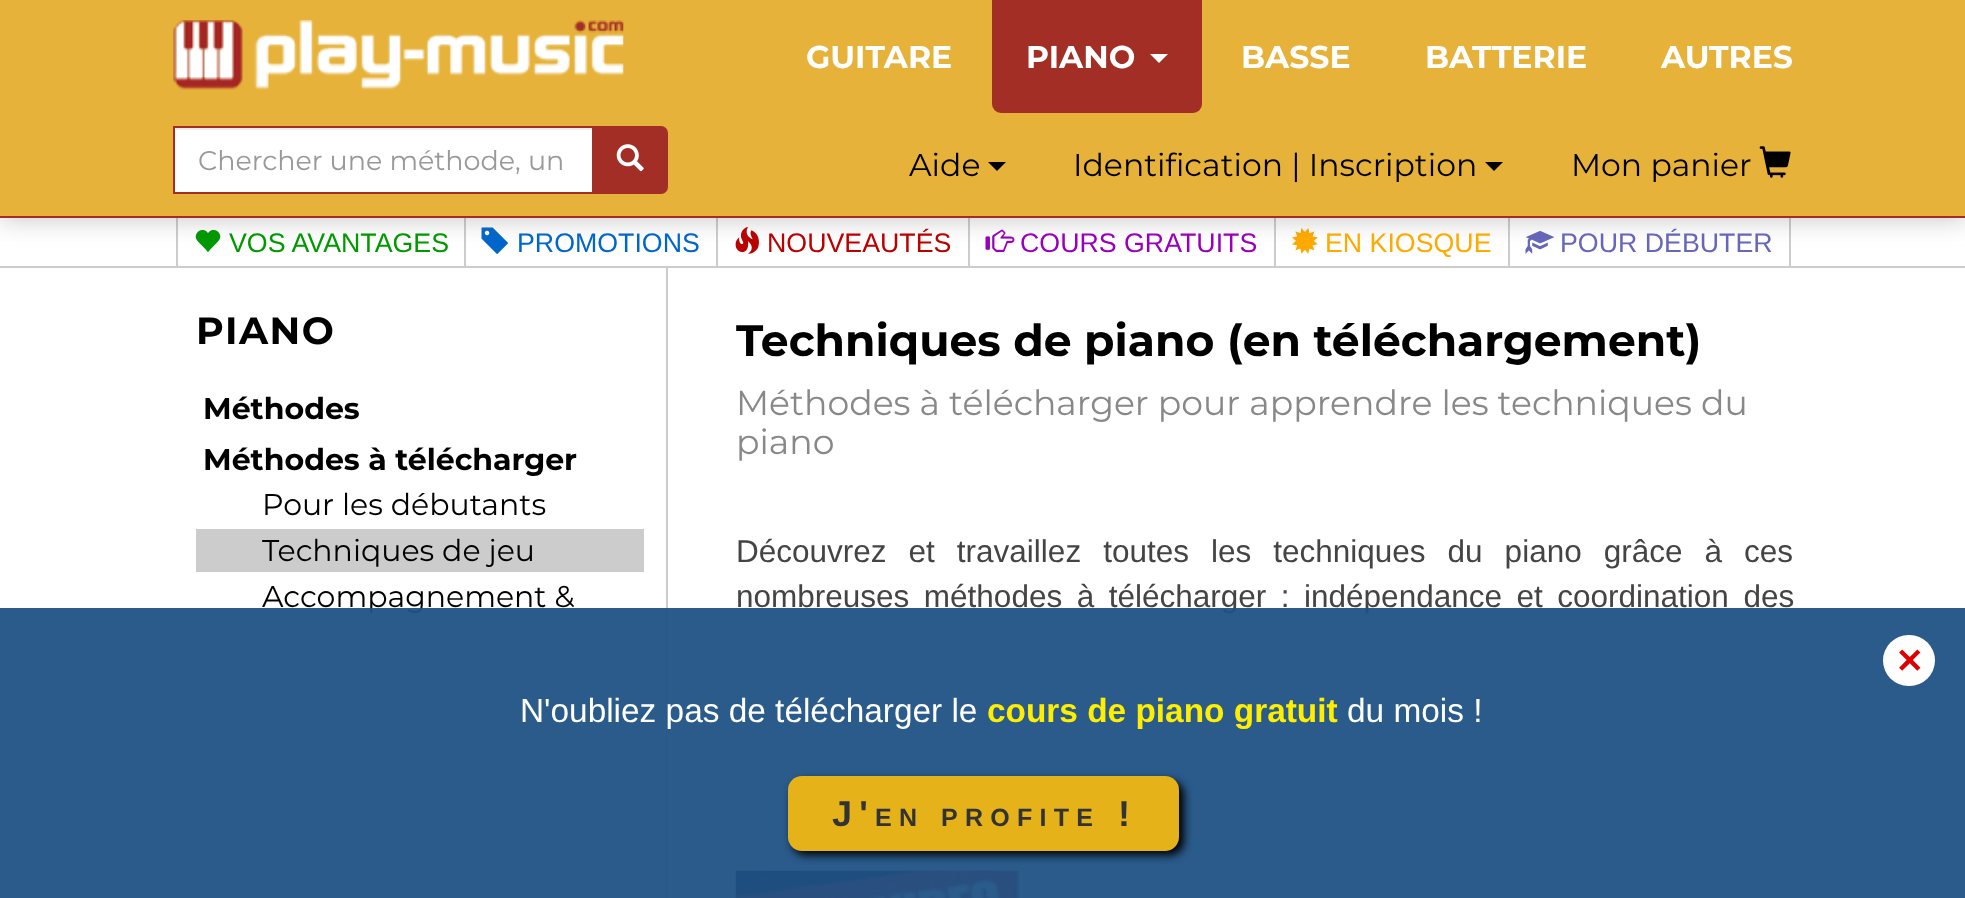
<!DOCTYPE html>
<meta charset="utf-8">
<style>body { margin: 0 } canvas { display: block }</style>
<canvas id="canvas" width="1965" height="898"></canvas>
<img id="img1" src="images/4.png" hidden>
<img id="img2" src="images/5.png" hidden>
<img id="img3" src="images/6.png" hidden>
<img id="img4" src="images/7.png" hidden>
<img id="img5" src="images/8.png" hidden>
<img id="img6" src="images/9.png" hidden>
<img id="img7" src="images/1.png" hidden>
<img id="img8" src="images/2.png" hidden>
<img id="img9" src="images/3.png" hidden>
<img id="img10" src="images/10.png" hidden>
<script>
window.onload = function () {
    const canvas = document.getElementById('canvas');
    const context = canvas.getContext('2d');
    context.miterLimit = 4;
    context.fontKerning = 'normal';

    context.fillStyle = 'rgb(255, 255, 255)';
    context.fillRect(0, 0, 1965, 898);
    context.fillStyle = 'rgb(204, 204, 204)';
    context.fillRect(464, 218, 2, 48);
    context.fillRect(176, 218, 2, 48);
    context.drawImage(document.getElementById('img1'), 195, 229, 26, 24);
    context.fillRect(716, 218, 2, 48);
    context.drawImage(document.getElementById('img2'), 481, 227, 27, 27);
    context.fillRect(968, 218, 2, 48);
    context.drawImage(document.getElementById('img3'), 735, 226, 24, 28);
    context.fillRect(1274, 218, 2, 48);
    context.drawImage(document.getElementById('img4'), 985, 229, 30, 23);
    context.fillRect(1508, 218, 2, 48);
    context.drawImage(document.getElementById('img5'), 1292, 228, 26, 26);
    context.fillRect(1789, 218, 2, 48);
    context.drawImage(document.getElementById('img6'), 1525, 230, 30, 24);
    context.fillStyle = 'rgba(100, 100, 100, 0.4)';
    context.filter = 'blur(13.5px)';
    context.beginPath();
    context.rect(0, 0, 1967, 218);
    context.fill();
    context.filter = 'none';
    context.fillStyle = 'rgb(230, 178, 58)';
    context.fillRect(0, 0, 1965, 216);
    context.fillStyle = 'rgb(163, 46, 38)';
    context.fillRect(0, 216, 1965, 2);
    context.drawImage(document.getElementById('img7'), 173, 20, 451, 70);
    context.beginPath();
    context.roundRect(992, 0, 210, 113, [0, 0, 9, 9]);
    context.fill();
    context.fillStyle = 'rgb(255, 255, 255)';
    context.beginPath();
    context.moveTo(1150, 54);
    context.lineTo(1168, 54);
    context.lineTo(1159, 63);
    context.closePath();
    context.fill();
    context.fillRect(175, 128, 417, 64);
    context.fillStyle = 'rgb(236, 236, 236)';
    context.fillRect(176, 128, 416, 2);
    context.fillStyle = 'rgb(163, 46, 38)';
    context.beginPath();
    context.roundRect(593, 127, 74, 66, [0, 6, 6, 0]);
    context.fill();
    context.strokeStyle = 'rgb(163, 46, 38)';
    context.lineWidth = 2;
    context.stroke();
    context.strokeRect(174, 127, 419, 66);
    context.drawImage(document.getElementById('img8'), 616, 144, 28, 28);
    context.fillStyle = 'rgb(0, 0, 0)';
    context.beginPath();
    context.moveTo(988, 162);
    context.lineTo(1006, 162);
    context.lineTo(997, 171);
    context.closePath();
    context.fill();
    context.beginPath();
    context.moveTo(1485, 162);
    context.lineTo(1503, 162);
    context.lineTo(1494, 171);
    context.closePath();
    context.fill();
    context.drawImage(document.getElementById('img9'), 1759, 146, 32, 32);
    context.fillStyle = 'rgb(204, 204, 204)';
    context.fillRect(0, 266, 1965, 2);
    context.fillRect(666, 268, 2, 630);
    context.fillRect(196, 529, 448, 43);
    context.save();
    context.beginPath();
    context.moveTo(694, 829);
    context.lineTo(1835, 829);
    context.lineTo(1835, 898);
    context.lineTo(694, 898);
    context.closePath();
    context.moveTo(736, 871);
    context.lineTo(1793, 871);
    context.lineTo(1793, 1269);
    context.lineTo(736, 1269);
    context.closePath();
    context.clip('evenodd');
    context.fillStyle = 'rgb(221, 221, 221)';
    context.filter = 'blur(13.5px)';
    context.beginPath();
    context.rect(736, 871, 1057, 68);
    context.fill();
    context.filter = 'none';
    context.restore();
    context.fillStyle = 'rgb(153, 153, 153)';
    context.fillRect(1017, 871, 2, 27);
    context.drawImage(document.getElementById('img10'), 735, 870, 282, 28);
    context.font = 'bold 31.5px Montserrat';
    context.fillStyle = 'rgb(255, 255, 255)';
    context.fillText('GUITARE', 806, 68);
    context.fillText('PIANO', 1026, 68);
    context.fillText('BASSE', 1241, 68);
    context.fillText('BATTERIE', 1425, 68);
    context.fillText('AUTRES', 1661, 68);
    context.font = '27px Montserrat';
    context.fillStyle = 'rgb(153, 153, 153)';
    context.fillText('Chercher une méthode, un', 198, 170);
    context.font = '31.5px Montserrat';
    context.fillStyle = 'rgb(0, 0, 0)';
    context.fillText('Aide', 909, 176);
    context.fillText('Identification | Inscription', 1073, 176);
    context.fillText('Mon panier', 1571, 176);
    context.font = '26.75px Liberation Sans';
    context.fillStyle = 'rgb(0, 153, 0)';
    context.fillText('VOS AVANTAGES', 229, 252);
    context.fillStyle = 'rgb(0, 102, 204)';
    context.fillText('PROMOTIONS', 517, 252);
    context.fillStyle = 'rgb(187, 0, 0)';
    context.fillText('NOUVEAUTÉS', 767, 252);
    context.fillStyle = 'rgb(153, 0, 187)';
    context.fillText('COURS GRATUITS', 1020, 252);
    context.fillStyle = 'rgb(255, 170, 0)';
    context.fillText('EN KIOSQUE', 1325, 252);
    context.fillStyle = 'rgb(102, 102, 187)';
    context.fillText('POUR DÉBUTER', 1560, 252);
    context.letterSpacing = '1.5px';
    context.font = 'bold 38px Montserrat';
    context.fillStyle = 'rgb(0, 0, 0)';
    context.fillText('PIANO', 196, 344);
    context.letterSpacing = '0px';
    context.font = 'bold 30px Montserrat';
    context.fillText('Méthodes', 203, 419);
    context.fillText('Méthodes à télécharger', 203, 470);
    context.font = '30px Montserrat';
    context.fillText('Pour les débutants', 262, 515);
    context.fillText('Techniques de jeu', 262, 561);
    context.fillText('Accompagnement &', 262, 607);
    context.font = 'bold 44.1px Montserrat';
    context.fillText('Techniques de piano (en téléchargement)', 736, 356);
    context.font = '34.65px Montserrat';
    context.fillStyle = 'rgb(136, 136, 136)';
    context.fillText('Méthodes à télécharger pour apprendre les techniques du', 736, 415);
    context.fillText('piano', 736, 454);
    context.wordSpacing = '13.25px';
    context.font = '31.5px Liberation Sans';
    context.fillStyle = 'rgb(68, 68, 68)';
    context.fillText('Découvrez et travaillez toutes les techniques du piano grâce à ces', 736, 562);
    context.wordSpacing = '5.75px';
    context.fillText('nombreuses méthodes à télécharger : indépendance et coordination des', 736, 607);
    context.fillStyle = 'rgba(31, 82, 133, 0.95)';
    context.fillRect(0, 608, 1965, 290);
    context.fillStyle = 'rgb(255, 255, 255)';
    context.beginPath();
    context.roundRect(1883, 635, 52, 51, 25.5);
    context.fill();
    context.wordSpacing = '0px';
    context.font = 'bold 34px DejaVu Sans';
    context.fillStyle = 'rgb(221, 0, 0)';
    context.fillText('✕', 1895, 673);
    context.font = '33.4px Liberation Sans';
    context.fillStyle = 'rgb(255, 255, 255)';
    context.fillText('N\'oubliez pas de télécharger le', 520, 722);
    context.font = 'bold 33.4px Liberation Sans';
    context.fillStyle = 'rgb(255, 238, 0)';
    context.fillText('cours de piano gratuit', 987, 722);
    context.font = '33.4px Liberation Sans';
    context.fillStyle = 'rgb(255, 255, 255)';
    context.fillText('du mois !', 1347, 722);
    context.fillStyle = 'rgb(0, 0, 0)';
    context.filter = 'blur(4.5px)';
    context.beginPath();
    context.roundRect(792, 781, 392, 74, 14);
    context.fill();
    context.filter = 'none';
    context.fillStyle = 'rgb(229, 178, 26)';
    context.beginPath();
    context.roundRect(788, 776, 391, 75, 14);
    context.fill();
    context.letterSpacing = '7.25px';
    context.font = 'bold 36px Liberation Sans';
    context.fillStyle = 'rgb(51, 51, 51)';
    context.fillText('!', 1118, 826);
    context.font = 'bold 25px Liberation Sans';
    context.fillText('PROFITE', 941, 826);
    context.fillText('EN', 875, 826);
    context.font = 'bold 36px Liberation Sans';
    context.fillText('J\'', 832, 826);
};
</script>
